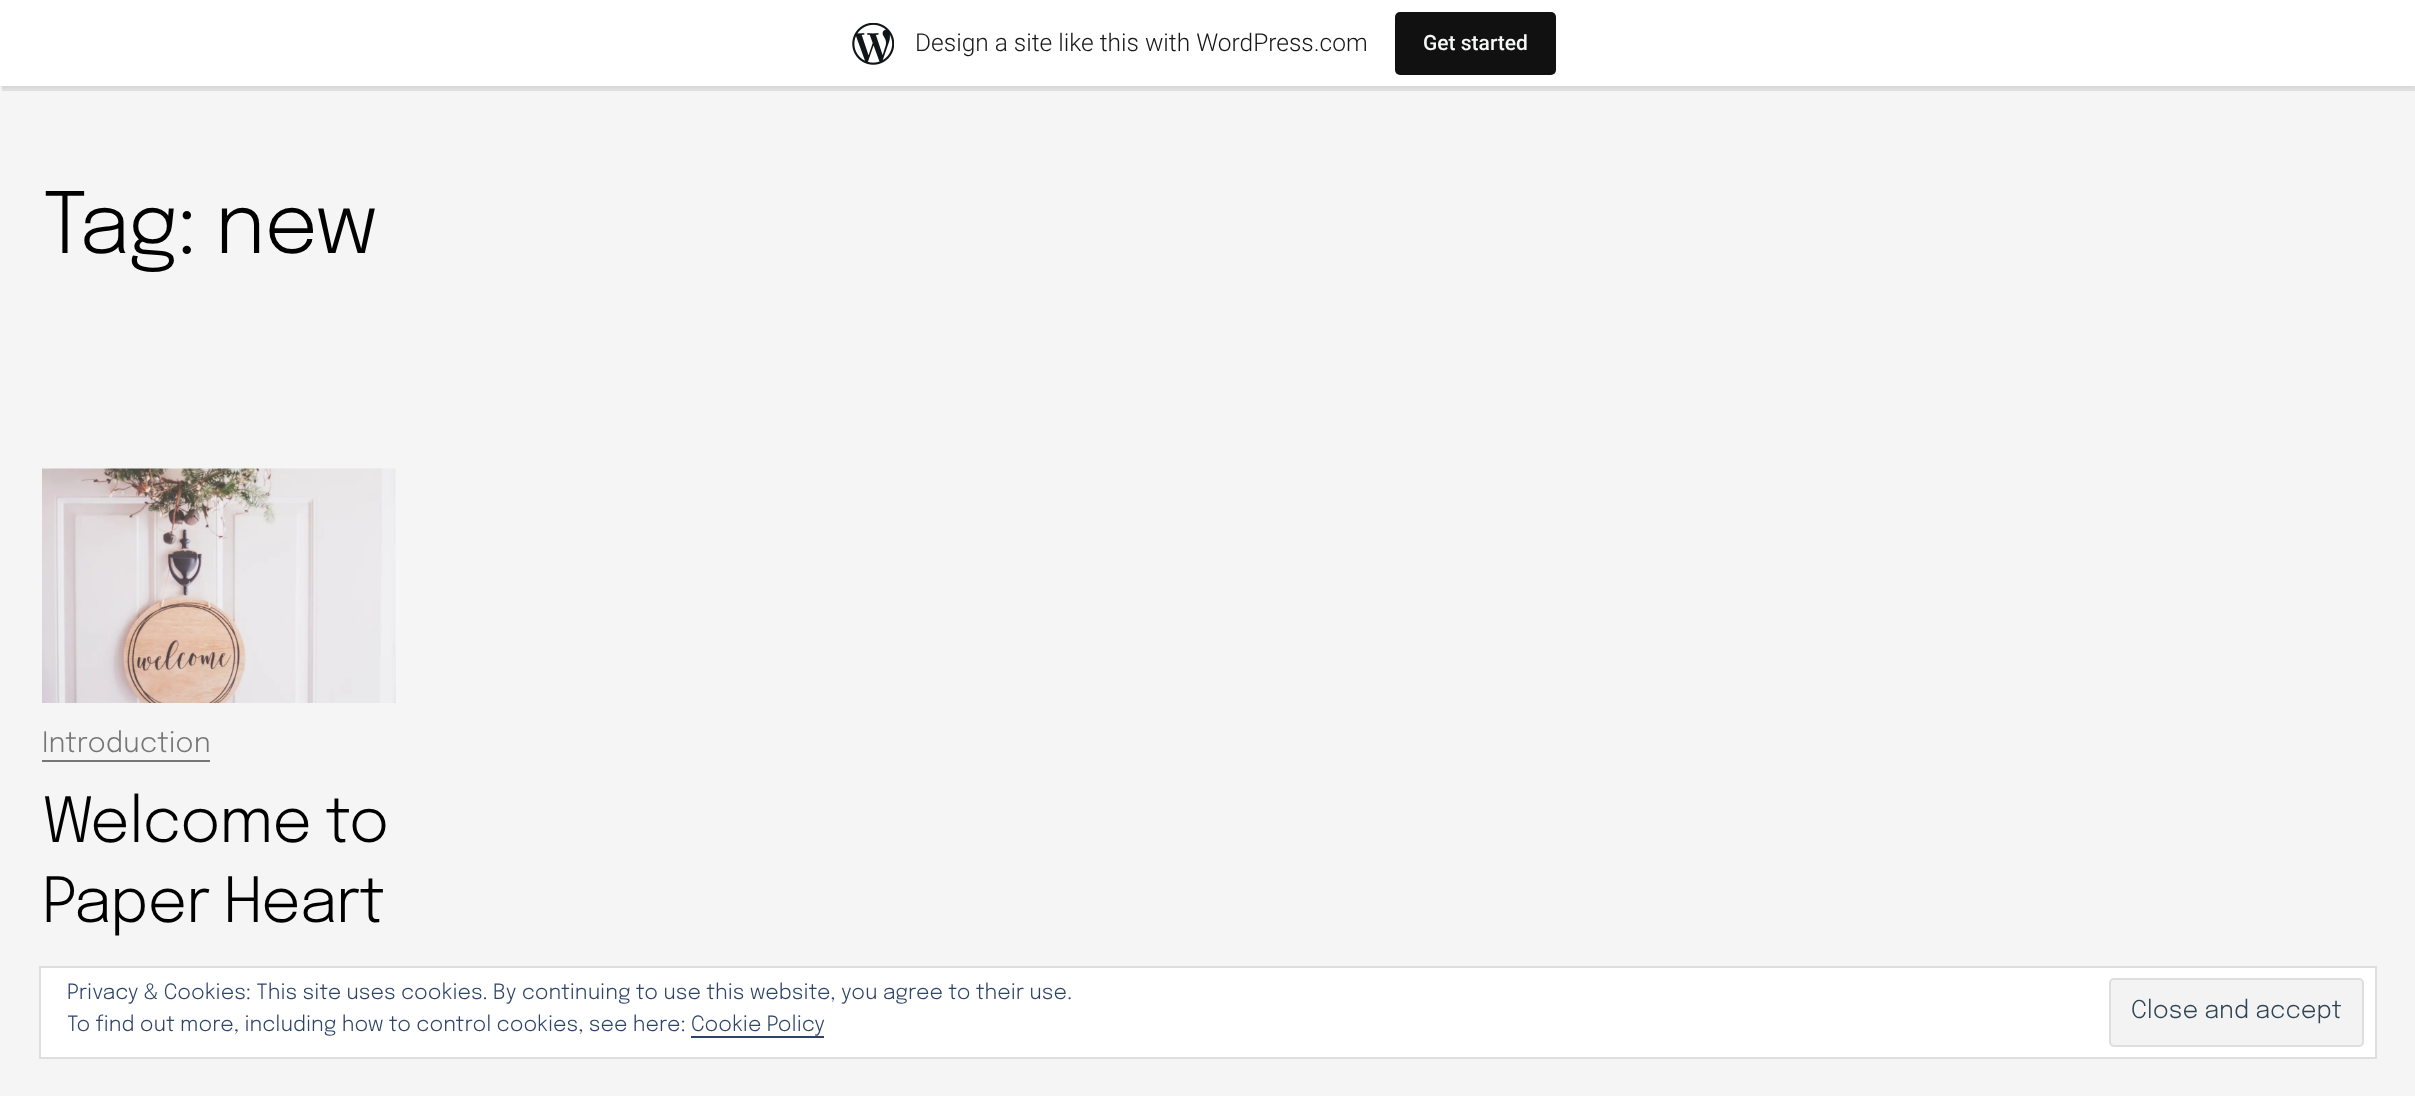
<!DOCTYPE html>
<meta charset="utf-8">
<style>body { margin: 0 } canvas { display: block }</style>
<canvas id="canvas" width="2415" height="1096"></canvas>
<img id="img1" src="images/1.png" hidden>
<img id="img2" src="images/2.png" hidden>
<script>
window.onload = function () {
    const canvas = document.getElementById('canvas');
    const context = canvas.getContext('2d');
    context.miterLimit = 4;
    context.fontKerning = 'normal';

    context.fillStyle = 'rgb(245, 245, 245)';
    context.fillRect(0, 0, 2415, 1096);
    context.fillStyle = 'rgba(0, 0, 0, 0.05)';
    context.filter = 'blur(2px)';
    context.beginPath();
    context.rect(0, 2, 2415, 86);
    context.fill();
    context.filter = 'none';
    context.fillStyle = 'rgba(0, 0, 0, 0.08)';
    context.beginPath();
    context.moveTo(2, 86);
    context.lineTo(2, 91);
    context.lineTo(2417, 91);
    context.lineTo(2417, 5);
    context.lineTo(2415, 5);
    context.lineTo(2415, 86);
    context.closePath();
    context.fill();
    context.fillStyle = 'rgb(255, 255, 255)';
    context.fillRect(0, 0, 2415, 86);
    context.drawImage(document.getElementById('img1'), 852, 23, 42, 42);
    context.fillStyle = 'rgb(17, 17, 17)';
    context.beginPath();
    context.roundRect(1395, 12, 161, 63, 5);
    context.fill();
    context.drawImage(document.getElementById('img2'), 42, 468, 354, 235);
    context.fillStyle = 'rgb(118, 118, 118)';
    context.fillRect(42, 760, 168, 2);
    context.fillStyle = 'rgb(255, 255, 255)';
    context.beginPath();
    context.rect(40, 967, 2336, 91);
    context.fill();
    context.strokeStyle = 'rgb(222, 222, 222)';
    context.lineWidth = 2;
    context.stroke();
    context.fillStyle = 'rgb(243, 243, 243)';
    context.beginPath();
    context.roundRect(2110, 979, 253, 67, 4);
    context.fill();
    context.stroke();
    context.fillStyle = 'rgb(46, 68, 103)';
    context.fillRect(691, 1036, 133, 2);
    context.font = '300 24.5px Roboto';
    context.fillStyle = 'rgb(23, 23, 23)';
    context.fillText('Design a site like this with WordPress.com', 915, 51);
    context.font = '500 21px Roboto';
    context.fillStyle = 'rgb(246, 247, 247)';
    context.fillText('Get started', 1423, 50);
    context.letterSpacing = '-1.75px';
    context.font = '300 84px Epilogue';
    context.fillStyle = 'rgb(0, 0, 0)';
    context.fillText('Tag: new', 42, 253);
    context.letterSpacing = '0px';
    context.font = '300 28px Epilogue';
    context.fillStyle = 'rgb(118, 118, 118)';
    context.fillText('Introduction', 42, 752);
    context.letterSpacing = '-1.25px';
    context.font = '300 62px Epilogue';
    context.fillStyle = 'rgb(0, 0, 0)';
    context.fillText('Welcome to', 42, 842);
    context.fillText('Paper Heart', 42, 922);
    context.letterSpacing = '0px';
    context.font = '300 21px Epilogue';
    context.fillStyle = 'rgb(46, 68, 103)';
    context.fillText('Privacy & Cookies: This site uses cookies. By continuing to use this website, you agree to their use.', 67, 999);
    context.fillText('To find out more, including how to control cookies, see here: Cookie Policy', 67, 1031);
    context.font = '300 24.5px Epilogue';
    context.fillStyle = 'rgb(46, 68, 83)';
    context.fillText('Close and accept', 2131, 1018);
};
</script>
